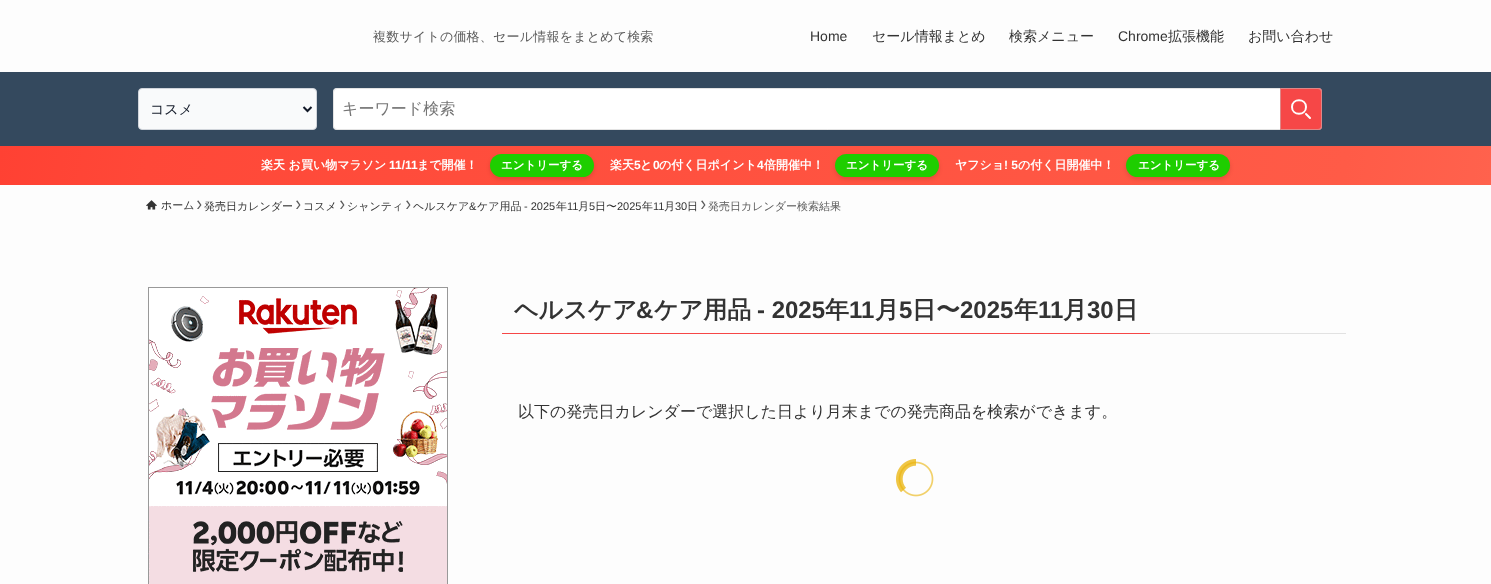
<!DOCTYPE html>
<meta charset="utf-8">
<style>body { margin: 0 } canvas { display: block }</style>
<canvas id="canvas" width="1491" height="584"></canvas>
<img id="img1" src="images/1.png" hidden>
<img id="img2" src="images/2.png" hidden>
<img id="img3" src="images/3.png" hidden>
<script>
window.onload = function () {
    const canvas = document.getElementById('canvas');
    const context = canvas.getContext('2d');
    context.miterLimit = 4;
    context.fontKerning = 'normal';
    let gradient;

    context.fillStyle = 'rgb(253, 253, 253)';
    context.fillRect(0, 0, 1491, 584);
    context.fillStyle = 'rgb(52, 73, 94)';
    context.fillRect(0, 72, 1491, 74);
    context.fillStyle = 'rgb(249, 250, 251)';
    context.beginPath();
    context.roundRect(138.5, 88.5, 178, 41, 3.5);
    context.fill();
    context.strokeStyle = 'rgb(209, 213, 219)';
    context.stroke();
    context.beginPath();
    context.moveTo(303.5, 107);
    context.lineTo(307.5, 111);
    context.lineTo(311.5, 107);
    context.strokeStyle = 'rgb(17, 24, 39)';
    context.lineWidth = 2;
    context.stroke();
    context.fillStyle = 'rgb(255, 255, 255)';
    context.beginPath();
    context.roundRect(333, 88, 989, 42, 4);
    context.fill();
    context.beginPath();
    context.roundRect(333.5, 88.5, 988, 41, 3.5);
    context.strokeStyle = 'rgba(199, 199, 199, 0.5)';
    context.lineWidth = 1;
    context.stroke();
    context.fillStyle = 'rgb(246, 71, 71)';
    context.beginPath();
    context.roundRect(1280, 88, 42, 42, [0, 4, 4, 0]);
    context.fill();
    context.beginPath();
    context.roundRect(1280.5, 88.5, 41, 41, [0, 3.5, 3.5, 0]);
    context.stroke();
    context.beginPath();
    context.moveTo(1310, 118);
    context.lineTo(1306, 114);
    context.moveTo(1306, 107);
    context.bezierCurveTo(1306, 116, 1292, 116, 1292, 107);
    context.bezierCurveTo(1292, 98, 1306, 98, 1306, 107);
    context.closePath();
    context.strokeStyle = 'rgb(255, 255, 255)';
    context.lineWidth = 2;
    context.lineCap = 'round';
    context.lineJoin = 'round';
    context.stroke();
    gradient = context.createLinearGradient(19, 37, 1472, 294);
    gradient.addColorStop(0, 'rgb(255, 65, 51)');
    gradient.addColorStop(0.1, 'rgb(255, 72, 56)');
    gradient.addColorStop(0.9, 'rgb(255, 91, 71)');
    gradient.addColorStop(1, 'rgb(255, 98, 77)');
    context.fillStyle = gradient;
    context.fillRect(0, 146, 1491, 39);
    context.fillStyle = 'rgba(0, 0, 0, 0.12)';
    context.filter = 'blur(2px)';
    context.beginPath();
    context.roundRect(490, 156, 104, 23, 11.5);
    context.fill();
    context.filter = 'none';
    context.fillStyle = 'rgb(30, 206, 0)';
    context.beginPath();
    context.roundRect(490, 154, 104, 23, 11.5);
    context.fill();
    context.fillStyle = 'rgba(0, 0, 0, 0.12)';
    context.filter = 'blur(2px)';
    context.beginPath();
    context.roundRect(835, 156, 104, 23, 11.5);
    context.fill();
    context.filter = 'none';
    context.fillStyle = 'rgb(30, 206, 0)';
    context.beginPath();
    context.roundRect(835, 154, 104, 23, 11.5);
    context.fill();
    context.fillStyle = 'rgba(0, 0, 0, 0.12)';
    context.filter = 'blur(2px)';
    context.beginPath();
    context.roundRect(1126, 156, 104, 23, 11.5);
    context.fill();
    context.filter = 'none';
    context.fillStyle = 'rgb(30, 206, 0)';
    context.beginPath();
    context.roundRect(1126, 154, 104, 23, 11.5);
    context.fill();
    context.drawImage(document.getElementById('img1'), 146, 200, 11, 10);
    context.fillStyle = 'rgb(91, 91, 91)';
    context.beginPath();
    context.moveTo(198.5, 200.5);
    context.lineTo(197, 201);
    context.lineTo(200, 205);
    context.lineTo(197, 209);
    context.lineTo(198.5, 209);
    context.lineTo(201.5, 205);
    context.closePath();
    context.fill();
    context.beginPath();
    context.moveTo(297.5, 200.5);
    context.lineTo(296, 201);
    context.lineTo(299, 205);
    context.lineTo(296, 209);
    context.lineTo(297.5, 209);
    context.lineTo(300.5, 205);
    context.closePath();
    context.fill();
    context.beginPath();
    context.moveTo(341.5, 200.5);
    context.lineTo(340, 201);
    context.lineTo(343, 205);
    context.lineTo(340, 209);
    context.lineTo(341.5, 209);
    context.lineTo(344.5, 205);
    context.closePath();
    context.fill();
    context.beginPath();
    context.moveTo(407.5, 200.5);
    context.lineTo(406, 201);
    context.lineTo(409, 205);
    context.lineTo(406, 209);
    context.lineTo(407.5, 209);
    context.lineTo(410.5, 205);
    context.closePath();
    context.fill();
    context.beginPath();
    context.moveTo(702.5, 200.5);
    context.lineTo(701, 201);
    context.lineTo(704, 205);
    context.lineTo(701, 209);
    context.lineTo(702.5, 209);
    context.lineTo(705.5, 205);
    context.closePath();
    context.fill();
    context.drawImage(document.getElementById('img2'), 148, 287, 300, 297);
    context.fillStyle = 'rgb(226, 226, 226)';
    context.fillRect(1150, 333, 196, 1);
    context.fillStyle = 'rgb(246, 71, 71)';
    context.fillRect(502, 333, 648, 1);
    context.drawImage(document.getElementById('img3'), 896, 459, 38, 38);
    context.letterSpacing = '0.2px';
    context.font = '500 13px WenQuanYi Zen Hei';
    context.fillStyle = 'rgb(91, 91, 91)';
    context.fillText('複数サイトの価格、セール情報をまとめて検索', 373, 41);
    context.letterSpacing = '0px';
    context.font = '14px Liberation Sans';
    context.fillStyle = 'rgb(51, 51, 51)';
    context.fillText('Home', 810, 41);
    context.font = '500 14px WenQuanYi Zen Hei';
    context.fillText('セール情報まとめ', 872, 41);
    context.fillText('検索メニュー', 1009, 41);
    context.font = '14px Liberation Sans';
    context.fillText('Chrome', 1118, 41);
    context.font = '500 14px WenQuanYi Zen Hei';
    context.fillText('拡張機能', 1168, 41);
    context.fillText('お問い合わせ', 1248, 41);
    context.fillStyle = 'rgb(17, 24, 39)';
    context.fillText('コスメ', 150, 114);
    context.font = '500 16px WenQuanYi Zen Hei';
    context.fillStyle = 'rgb(117, 117, 117)';
    context.fillText('キーワード検索', 342, 114);
    context.font = 'bold 12px WenQuanYi Zen Hei';
    context.fillStyle = 'rgb(255, 255, 255)';
    context.fillText('楽天 お買い物マラソン', 261, 169);
    context.font = 'bold 12px Liberation Sans';
    context.fillText('11/11', 389, 169);
    context.font = 'bold 12px WenQuanYi Zen Hei';
    context.fillText('まで開催！', 417, 169);
    context.font = 'bold 11.5px WenQuanYi Zen Hei';
    context.fillText('エントリーする', 501, 169);
    context.font = 'bold 12px WenQuanYi Zen Hei';
    context.fillText('楽天', 610, 169);
    context.font = 'bold 12px Liberation Sans';
    context.fillText('5', 634, 169);
    context.font = 'bold 12px WenQuanYi Zen Hei';
    context.fillText('と', 640, 169);
    context.font = 'bold 12px Liberation Sans';
    context.fillText('0', 653, 169);
    context.font = 'bold 12px WenQuanYi Zen Hei';
    context.fillText('の付く日ポイント', 659, 169);
    context.font = 'bold 12px Liberation Sans';
    context.fillText('4', 757, 169);
    context.font = 'bold 12px WenQuanYi Zen Hei';
    context.fillText('倍開催中！', 764, 169);
    context.font = 'bold 11.5px WenQuanYi Zen Hei';
    context.fillText('エントリーする', 846, 169);
    context.font = 'bold 12px WenQuanYi Zen Hei';
    context.fillText('ヤフショ', 955, 169);
    context.font = 'bold 12px Liberation Sans';
    context.fillText('! 5', 1004, 169);
    context.font = 'bold 12px WenQuanYi Zen Hei';
    context.fillText('の付く日開催中！', 1018, 169);
    context.font = 'bold 11.5px WenQuanYi Zen Hei';
    context.fillText('エントリーする', 1138, 169);
    context.font = '500 11px WenQuanYi Zen Hei';
    context.fillStyle = 'rgb(51, 51, 51)';
    context.fillText('ホーム', 161, 209);
    context.fillText('発売日カレンダー', 204, 210);
    context.fillText('コスメ', 303, 210);
    context.fillText('シャンティ', 347, 210);
    context.fillText('ヘルスケア', 413, 210);
    context.font = '11px Liberation Sans';
    context.fillText('&', 469, 210);
    context.font = '500 11px WenQuanYi Zen Hei';
    context.fillText('ケア用品', 477, 210);
    context.font = '11px Liberation Sans';
    context.fillText('- 2025', 524, 210);
    context.font = '500 11px WenQuanYi Zen Hei';
    context.fillText('年', 556, 210);
    context.font = '11px Liberation Sans';
    context.fillText('11', 567, 210);
    context.font = '500 11px WenQuanYi Zen Hei';
    context.fillText('月', 578, 210);
    context.font = '11px Liberation Sans';
    context.fillText('5', 589, 210);
    context.font = '500 11px WenQuanYi Zen Hei';
    context.fillText('日〜', 595, 210);
    context.font = '11px Liberation Sans';
    context.fillText('2025', 617, 210);
    context.font = '500 11px WenQuanYi Zen Hei';
    context.fillText('年', 642, 210);
    context.font = '11px Liberation Sans';
    context.fillText('11', 653, 210);
    context.font = '500 11px WenQuanYi Zen Hei';
    context.fillText('月', 664, 210);
    context.font = '11px Liberation Sans';
    context.fillText('30', 675, 210);
    context.font = '500 11px WenQuanYi Zen Hei';
    context.fillText('日', 687, 210);
    context.fillStyle = 'rgb(91, 91, 91)';
    context.fillText('発売日カレンダー検索結果', 708, 210);
    context.font = 'bold 24px WenQuanYi Zen Hei';
    context.fillStyle = 'rgb(51, 51, 51)';
    context.fillText('ヘルスケア', 514, 318);
    context.font = 'bold 24px Liberation Sans';
    context.fillText('&', 636, 318);
    context.font = 'bold 24px WenQuanYi Zen Hei';
    context.fillText('ケア用品', 654, 318);
    context.font = 'bold 24px Liberation Sans';
    context.fillText('- 2025', 757, 318);
    context.font = 'bold 24px WenQuanYi Zen Hei';
    context.fillText('年', 825, 318);
    context.font = 'bold 24px Liberation Sans';
    context.fillText('11', 849, 318);
    context.font = 'bold 24px WenQuanYi Zen Hei';
    context.fillText('月', 875, 318);
    context.font = 'bold 24px Liberation Sans';
    context.fillText('5', 899, 318);
    context.font = 'bold 24px WenQuanYi Zen Hei';
    context.fillText('日〜', 912, 318);
    context.font = 'bold 24px Liberation Sans';
    context.fillText('2025', 960, 318);
    context.font = 'bold 24px WenQuanYi Zen Hei';
    context.fillText('年', 1014, 318);
    context.font = 'bold 24px Liberation Sans';
    context.fillText('11', 1038, 318);
    context.font = 'bold 24px WenQuanYi Zen Hei';
    context.fillText('月', 1063, 318);
    context.font = 'bold 24px Liberation Sans';
    context.fillText('30', 1087, 318);
    context.font = 'bold 24px WenQuanYi Zen Hei';
    context.fillText('日', 1114, 318);
    context.font = '500 16px WenQuanYi Zen Hei';
    context.fillText('以下の発売日カレンダーで選択した日より月末までの発売商品を検索ができます。', 518, 417);
};
</script>
